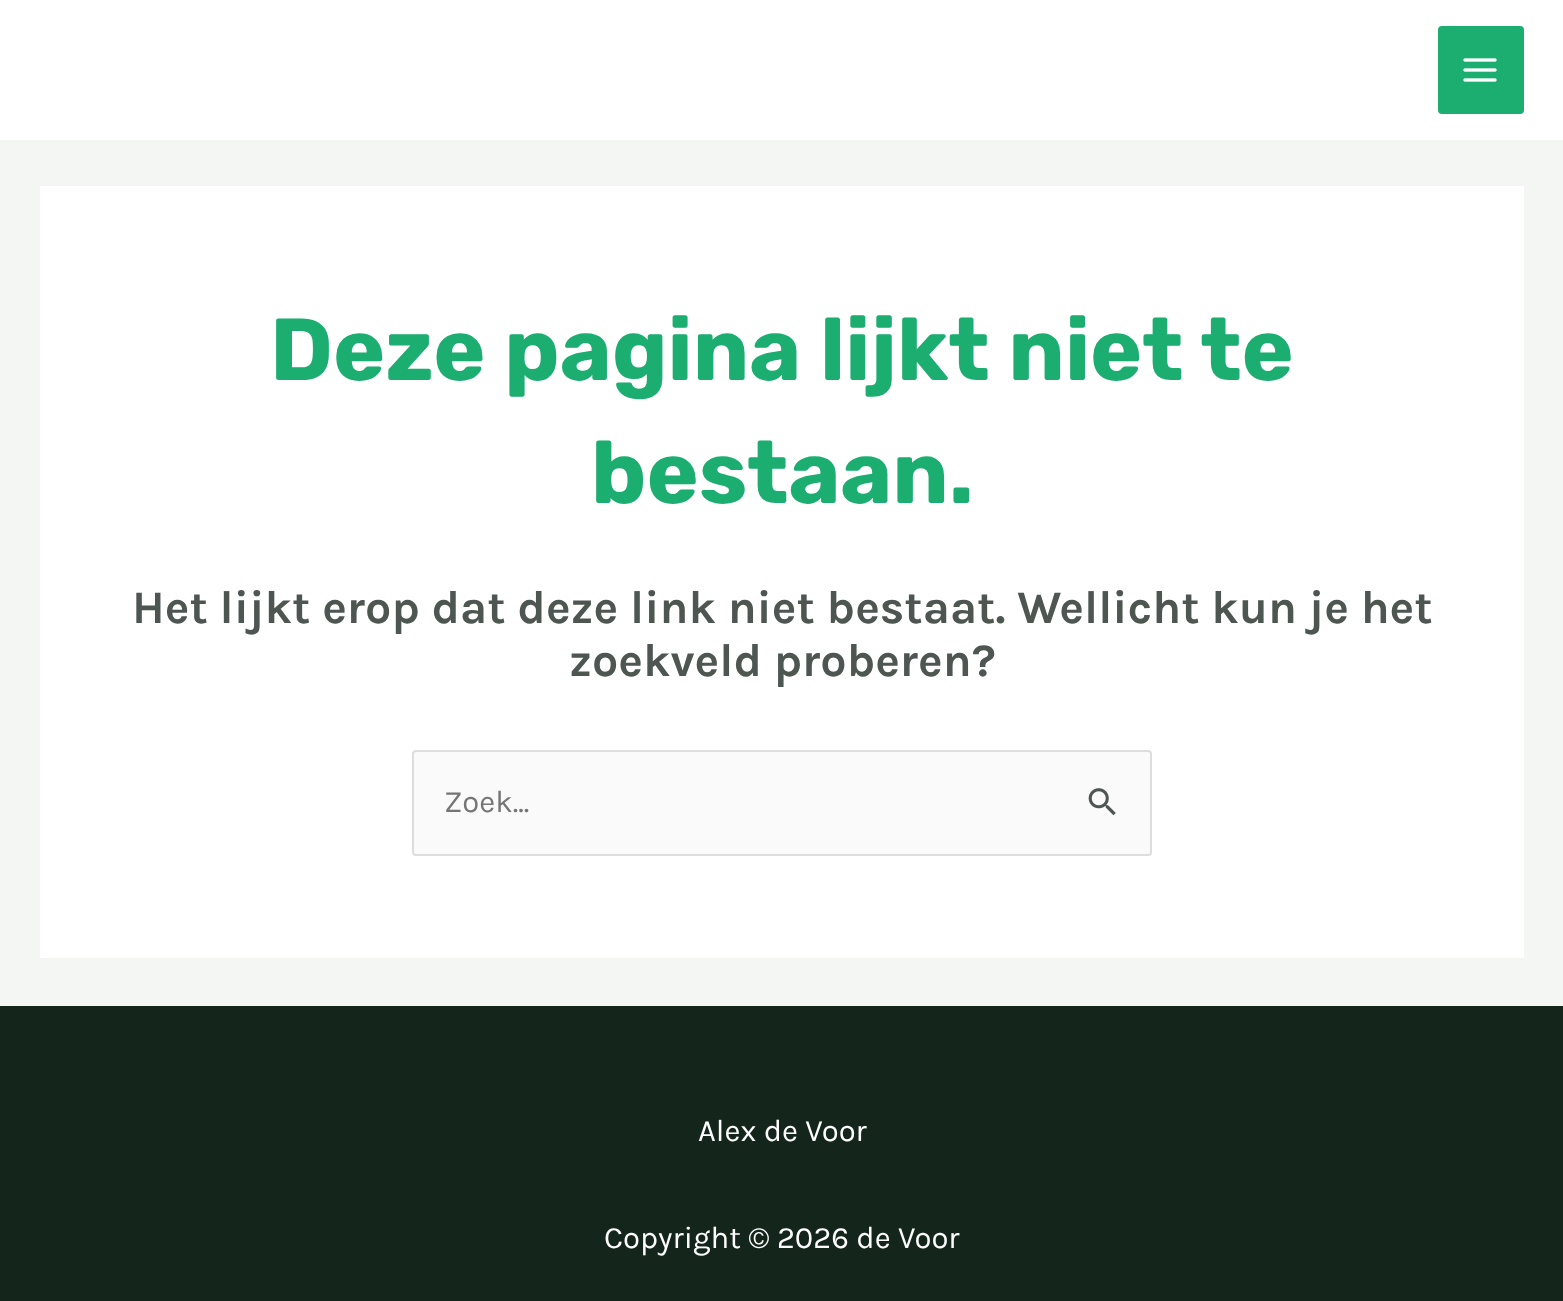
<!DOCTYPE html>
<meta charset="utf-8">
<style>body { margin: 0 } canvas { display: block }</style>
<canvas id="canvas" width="1563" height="1301"></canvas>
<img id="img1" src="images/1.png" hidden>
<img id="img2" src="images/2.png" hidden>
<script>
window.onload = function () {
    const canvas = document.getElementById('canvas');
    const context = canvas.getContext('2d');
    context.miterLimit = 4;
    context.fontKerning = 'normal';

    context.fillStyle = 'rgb(244, 246, 244)';
    context.fillRect(0, 0, 1563, 1301);
    context.fillStyle = 'rgb(255, 255, 255)';
    context.fillRect(0, 0, 1563, 140);
    context.fillStyle = 'rgb(27, 174, 112)';
    context.beginPath();
    context.roundRect(1438, 26, 86, 88, 4);
    context.fill();
    context.drawImage(document.getElementById('img1'), 1463, 58, 34, 24);
    context.fillStyle = 'rgb(255, 255, 255)';
    context.fillRect(40, 186, 1484, 772);
    context.fillStyle = 'rgb(250, 250, 250)';
    context.beginPath();
    context.roundRect(413, 751, 738, 104, 3);
    context.fill();
    context.strokeStyle = 'rgb(221, 221, 221)';
    context.lineWidth = 2;
    context.stroke();
    context.drawImage(document.getElementById('img2'), 1088, 788, 28, 28);
    context.fillStyle = 'rgb(20, 38, 28)';
    context.fillRect(0, 1006, 1563, 295);
    context.font = '300 88px Rubik';
    context.fillStyle = 'rgb(27, 174, 112)';
    context.fillText('Deze pagina lijkt niet te', 270, 380);
    context.fillText('bestaan.', 591, 503);
    context.font = 'bold 46.5px Karla';
    context.fillStyle = 'rgb(78, 86, 82)';
    context.fillText('Het lijkt erop dat deze link niet bestaat. Wellicht kun je het', 132, 623);
    context.fillText('zoekveld proberen?', 569, 676);
    context.font = '31px Karla';
    context.fillStyle = 'rgb(117, 117, 117)';
    context.fillText('Zoek...', 444, 812);
    context.fillStyle = 'rgb(255, 255, 255)';
    context.fillText('Alex de Voor', 698, 1141);
    context.fillText('Copyright © 2026 de Voor', 604, 1248);
};
</script>
